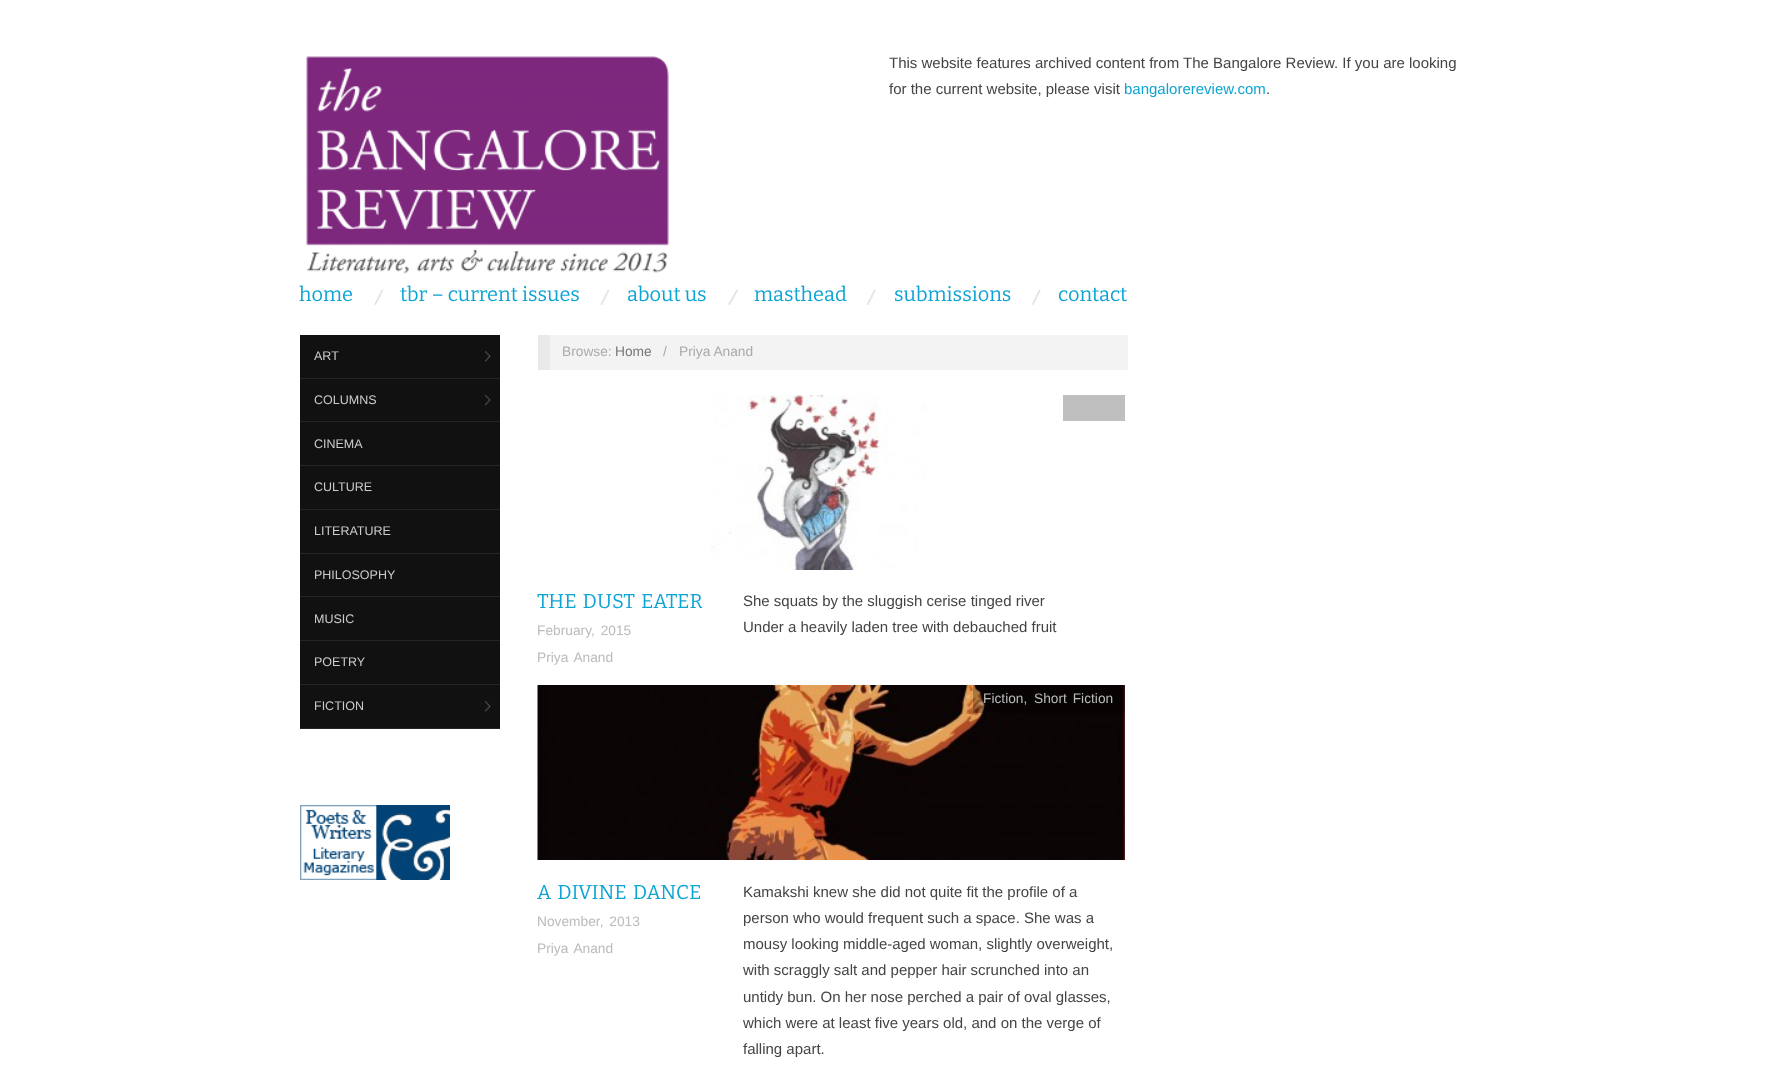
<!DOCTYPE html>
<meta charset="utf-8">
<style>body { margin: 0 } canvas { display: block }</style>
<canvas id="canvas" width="1773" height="1081"></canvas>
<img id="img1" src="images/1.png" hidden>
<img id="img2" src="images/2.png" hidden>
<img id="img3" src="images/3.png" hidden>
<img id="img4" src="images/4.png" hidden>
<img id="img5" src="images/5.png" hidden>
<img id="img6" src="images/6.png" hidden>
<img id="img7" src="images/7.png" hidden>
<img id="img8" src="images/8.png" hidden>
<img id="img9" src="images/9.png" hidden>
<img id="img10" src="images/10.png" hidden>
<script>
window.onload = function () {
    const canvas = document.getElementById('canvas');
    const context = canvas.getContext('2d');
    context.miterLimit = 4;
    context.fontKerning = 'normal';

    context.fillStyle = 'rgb(255, 255, 255)';
    context.fillRect(0, 0, 1773, 1081);
    context.drawImage(document.getElementById('img1'), 306, 56, 363, 218);
    context.drawImage(document.getElementById('img2'), 374, 289, 10, 16);
    context.drawImage(document.getElementById('img3'), 600, 289, 10, 16);
    context.drawImage(document.getElementById('img4'), 727, 289, 12, 16);
    context.drawImage(document.getElementById('img5'), 866, 289, 10, 16);
    context.drawImage(document.getElementById('img5'), 1031, 289, 10, 16);
    context.fillStyle = 'rgb(17, 17, 17)';
    context.fillRect(300, 335, 200, 393);
    context.drawImage(document.getElementById('img6'), 484, 351, 7, 11);
    context.fillStyle = 'rgb(37, 37, 37)';
    context.fillRect(300, 378, 200, 1);
    context.drawImage(document.getElementById('img7'), 484, 394, 7, 12);
    context.fillRect(300, 421, 200, 1);
    context.fillRect(300, 465, 200, 1);
    context.fillRect(300, 509, 200, 1);
    context.fillRect(300, 553, 200, 1);
    context.fillRect(300, 596, 200, 1);
    context.fillRect(300, 640, 200, 1);
    context.fillRect(300, 684, 200, 1);
    context.drawImage(document.getElementById('img6'), 484, 701, 7, 11);
    context.fillRect(300, 728, 200, 1);
    context.drawImage(document.getElementById('img8'), 300, 805, 150, 75);
    context.fillStyle = 'rgb(243, 243, 243)';
    context.fillRect(550, 335, 578, 35);
    context.fillStyle = 'rgb(233, 233, 233)';
    context.fillRect(538, 335, 12, 35);
    context.drawImage(document.getElementById('img9'), 710, 395, 216, 175);
    context.fillStyle = 'rgb(191, 191, 191)';
    context.fillRect(1063, 395, 62, 26);
    context.drawImage(document.getElementById('img10'), 537, 685, 588, 175);
    context.fillStyle = 'rgba(0, 0, 0, 0.25)';
    context.fillRect(973, 685, 152, 28);
    context.font = '15px Liberation Sans';
    context.fillStyle = 'rgb(68, 68, 68)';
    context.fillText('This website features archived content from The Bangalore Review. If you are looking', 889, 68);
    context.fillText('for the current website, please visit', 889, 94);
    context.fillStyle = 'rgb(13, 164, 211)';
    context.fillText('bangalorereview.com', 1124, 94);
    context.fillStyle = 'rgb(68, 68, 68)';
    context.fillText('.', 1266, 94);
    context.font = '100 20px Bitter';
    context.fillStyle = 'rgb(13, 164, 211)';
    context.fillText('home', 299, 301);
    context.fillText('tbr – current issues', 400, 301);
    context.fillText('about us', 627, 301);
    context.fillText('masthead', 754, 301);
    context.fillText('submissions', 894, 301);
    context.fillText('contact', 1058, 301);
    context.font = '12.5px Liberation Sans';
    context.fillStyle = 'rgb(204, 204, 204)';
    context.fillText('ART', 314, 360);
    context.fillText('COLUMNS', 314, 404);
    context.fillText('CINEMA', 314, 448);
    context.fillText('CULTURE', 314, 491);
    context.fillText('LITERATURE', 314, 535);
    context.fillText('PHILOSOPHY', 314, 579);
    context.fillText('MUSIC', 314, 623);
    context.fillText('POETRY', 314, 666);
    context.fillText('FICTION', 314, 710);
    context.font = '13.75px Liberation Sans';
    context.fillStyle = 'rgb(170, 170, 170)';
    context.fillText('Browse:', 562, 356);
    context.fillStyle = 'rgb(119, 119, 119)';
    context.fillText('Home', 615, 356);
    context.fillStyle = 'rgb(170, 170, 170)';
    context.fillText('/', 663, 356);
    context.fillText('Priya Anand', 679, 356);
    context.wordSpacing = '2px';
    context.font = '100 20px Bitter';
    context.fillStyle = 'rgb(13, 164, 211)';
    context.fillText('THE DUST EATER', 537, 608);
    context.font = '13.75px Liberation Sans';
    context.fillStyle = 'rgb(187, 187, 187)';
    context.fillText('February, 2015', 537, 635);
    context.fillText('Priya Anand', 537, 662);
    context.wordSpacing = '0px';
    context.font = '15px Liberation Sans';
    context.fillStyle = 'rgb(68, 68, 68)';
    context.fillText('She squats by the sluggish cerise tinged river', 743, 606);
    context.fillText('Under a heavily laden tree with debauched fruit', 743, 632);
    context.font = '13.75px Liberation Sans';
    context.fillStyle = 'rgb(187, 187, 187)';
    context.fillText('Fiction,', 983, 703);
    context.wordSpacing = '2px';
    context.fillText('Short Fiction', 1034, 703);
    context.font = '100 20px Bitter';
    context.fillStyle = 'rgb(13, 164, 211)';
    context.fillText('A DIVINE DANCE', 537, 899);
    context.font = '13.75px Liberation Sans';
    context.fillStyle = 'rgb(187, 187, 187)';
    context.fillText('November, 2013', 537, 926);
    context.fillText('Priya Anand', 537, 953);
    context.wordSpacing = '0px';
    context.font = '15px Liberation Sans';
    context.fillStyle = 'rgb(68, 68, 68)';
    context.fillText('Kamakshi knew she did not quite fit the profile of a', 743, 897);
    context.fillText('person who would frequent such a space. She was a', 743, 923);
    context.fillText('mousy looking middle-aged woman, slightly overweight,', 743, 949);
    context.fillText('with scraggly salt and pepper hair scrunched into an', 743, 975);
    context.fillText('untidy bun. On her nose perched a pair of oval glasses,', 743, 1002);
    context.fillText('which were at least five years old, and on the verge of', 743, 1028);
    context.fillText('falling apart.', 743, 1054);
};
</script>
